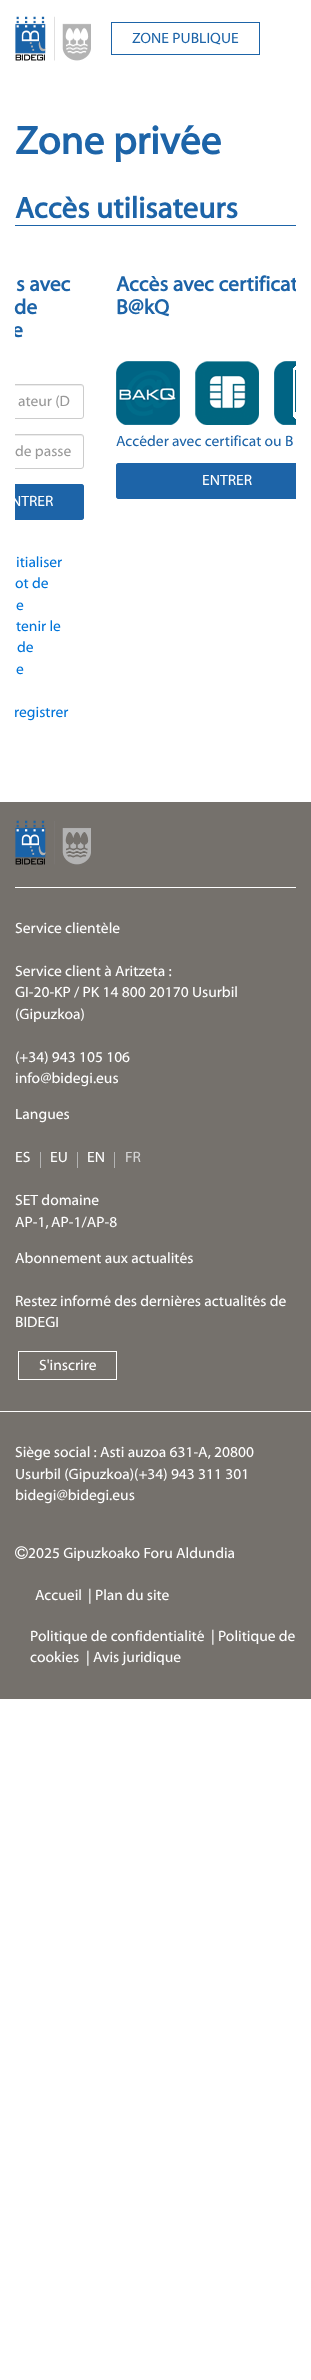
<!DOCTYPE html>
<meta charset="utf-8">
<style>body { margin: 0 } canvas { display: block }</style>
<canvas id="canvas" width="311" height="2380"></canvas>
<img id="img1" src="images/1.png" hidden>
<img id="img2" src="images/2.png" hidden>
<img id="img3" src="images/3.png" hidden>
<img id="img4" src="images/4.png" hidden>
<script>
window.onload = function () {
    const canvas = document.getElementById('canvas');
    const context = canvas.getContext('2d');
    context.miterLimit = 4;
    context.fontKerning = 'normal';

    context.fillStyle = 'rgb(255, 255, 255)';
    context.fillRect(0, 0, 311, 2380);
    context.drawImage(document.getElementById('img1'), 15, 16, 76, 45);
    context.strokeStyle = 'rgb(29, 100, 168)';
    context.strokeRect(111.5, 22.5, 148, 32);
    context.fillStyle = 'rgb(29, 100, 168)';
    context.fillRect(15, 225, 281, 1);
    context.save();
    context.beginPath();
    context.rect(15, 171, 281, 586);
    context.clip();
    context.fillStyle = 'rgb(236, 236, 236)';
    context.beginPath();
    context.moveTo(-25, 386);
    context.lineTo(81, 386);
    context.bezierCurveTo(82, 386, 83, 387, 83, 388);
    context.bezierCurveTo(83, 387, 83, 385, 81, 385);
    context.lineTo(-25, 385);
    context.bezierCurveTo(-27, 385, -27, 387, -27, 388);
    context.bezierCurveTo(-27, 387, -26, 386, -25, 386);
    context.closePath();
    context.fill();
    context.beginPath();
    context.roundRect(-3.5, 384.5, 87, 34, 2.5);
    context.strokeStyle = 'rgb(204, 204, 204)';
    context.stroke();
    context.beginPath();
    context.moveTo(-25, 436);
    context.lineTo(81, 436);
    context.bezierCurveTo(82, 436, 83, 437, 83, 438);
    context.bezierCurveTo(83, 437, 83, 435, 81, 435);
    context.lineTo(-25, 435);
    context.bezierCurveTo(-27, 435, -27, 437, -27, 438);
    context.bezierCurveTo(-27, 437, -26, 436, -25, 436);
    context.closePath();
    context.fill();
    context.beginPath();
    context.roundRect(-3.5, 434.5, 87, 34, 2.5);
    context.stroke();
    context.restore();
    context.beginPath();
    context.roundRect(15, 484, 69, 36, [0, 3, 3, 0]);
    context.fill();
    context.save();
    context.beginPath();
    context.rect(15, 171, 281, 586);
    context.clip();
    context.beginPath();
    context.roundRect(-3.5, 484.5, 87, 35, 2.5);
    context.stroke();
    context.restore();
    context.drawImage(document.getElementById('img2'), 116, 361, 180, 64);
    context.beginPath();
    context.roundRect(116, 463, 180, 36, [3, 0, 0, 3]);
    context.fill();
    context.save();
    context.beginPath();
    context.rect(15, 171, 281, 586);
    context.clip();
    context.beginPath();
    context.roundRect(116.5, 463.5, 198, 35, 2.5);
    context.stroke();
    context.restore();
    context.fillStyle = 'rgb(117, 113, 108)';
    context.fillRect(0, 802, 311, 897);
    context.fillStyle = 'rgb(255, 255, 255)';
    context.fillRect(15, 887, 281, 1);
    context.drawImage(document.getElementById('img3'), 15, 820, 76, 45);
    context.fillRect(0, 1411, 311, 1);
    context.fillStyle = 'rgb(180, 180, 180)';
    context.fillRect(40, 1152, 1, 16);
    context.fillRect(77, 1152, 1, 16);
    context.fillRect(114, 1152, 1, 16);
    context.strokeStyle = 'rgb(255, 255, 255)';
    context.strokeRect(18.5, 1351.5, 98, 28);
    context.drawImage(document.getElementById('img4'), 15, 1546, 13, 14);
    context.font = '15px Myriad';
    context.fillStyle = 'rgb(29, 100, 168)';
    context.fillText('ZONE PUBLIQUE', 132, 43);
    context.font = 'bold 40px Myriad';
    context.fillText('Zone privée', 15, 154);
    context.font = 'bold 30px Myriad';
    context.fillText('Accès utilisateurs', 15, 218);
    context.font = 'bold 21px Myriad';
    context.fillText('s avec', 16, 291);
    context.fillText('de', 14, 314);
    context.save();
    context.beginPath();
    context.rect(15, 171, 281, 586);
    context.clip();
    context.fillText('e', 12, 337);
    context.restore();
    context.font = '15px Myriad';
    context.fillStyle = 'rgb(153, 153, 153)';
    context.fillText('ateur (D', 18, 406);
    context.fillText('de passe', 15, 456);
    context.save();
    context.beginPath();
    context.rect(15, 171, 281, 586);
    context.clip();
    context.fillStyle = 'rgb(255, 255, 255)';
    context.fillText('NTRER', 11, 506);
    context.restore();
    context.fillStyle = 'rgb(0, 116, 217)';
    context.fillText('itialiser', 16, 567);
    context.fillText('ot de', 15, 588);
    context.fillText('e', 16, 610);
    context.fillText('tenir le', 16, 631);
    context.fillText('de', 17, 652);
    context.fillText('e', 16, 674);
    context.fillText('registrer', 14, 717);
    context.save();
    context.beginPath();
    context.rect(15, 171, 281, 586);
    context.clip();
    context.font = 'bold 21px Myriad';
    context.fillStyle = 'rgb(29, 100, 168)';
    context.fillText('Accès avec certificat', 116, 291);
    context.restore();
    context.font = 'bold 21px Myriad';
    context.fillStyle = 'rgb(29, 100, 168)';
    context.fillText('B@kQ', 116, 314);
    context.font = '15px Myriad';
    context.fillText('Accéder avec certificat ou B', 116, 446);
    context.fillStyle = 'rgb(255, 255, 255)';
    context.fillText('ENTRER', 202, 485);
    context.fillText('Service clientèle', 15, 933);
    context.fillText('Service client à Aritzeta :', 15, 976);
    context.fillText('GI-20-KP / PK 14 800 20170 Usurbil', 15, 997);
    context.fillText('(Gipuzkoa)', 15, 1019);
    context.fillText('(+34) 943 105 106', 15, 1062);
    context.fillText('info@bidegi.eus', 15, 1083);
    context.fillText('Langues', 15, 1119);
    context.fillText('ES', 15, 1162);
    context.fillText('EU', 50, 1162);
    context.fillText('EN', 87, 1162);
    context.fillStyle = 'rgb(211, 211, 211)';
    context.fillText('FR', 125, 1162);
    context.fillStyle = 'rgb(255, 255, 255)';
    context.fillText('SET domaine', 15, 1205);
    context.fillText('AP-1,', 15, 1227);
    context.fillText('AP-1/AP-8', 51, 1227);
    context.fillText('Abonnement aux actualités', 15, 1263);
    context.fillText('Restez informé des dernières actualités de', 15, 1306);
    context.fillText('BIDEGI', 15, 1327);
    context.fillText('S\'inscrire', 39, 1370);
    context.fillText('Siège social : Asti auzoa 631-A, 20800', 15, 1457);
    context.fillText('Usurbil (Gipuzkoa)(+34) 943 311 301', 15, 1479);
    context.fillText('bidegi@bidegi.eus', 15, 1500);
    context.fillText('2025 Gipuzkoako Foru Aldundia', 28, 1558);
    context.fillText('Accueil', 35, 1600);
    context.fillText('| Plan du site', 88, 1600);
    context.fillText('Politique de confidentialité', 30, 1641);
    context.fillText('| Politique de', 211, 1641);
    context.fillText('cookies', 30, 1662);
    context.fillText('| Avis juridique', 86, 1662);
};
</script>
